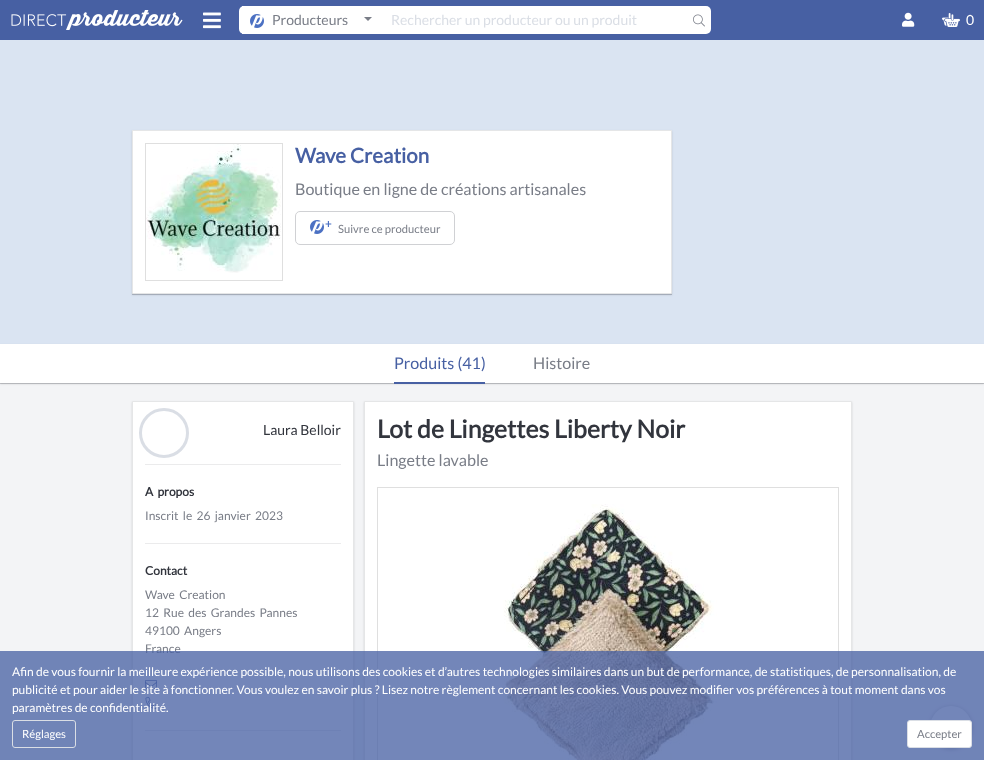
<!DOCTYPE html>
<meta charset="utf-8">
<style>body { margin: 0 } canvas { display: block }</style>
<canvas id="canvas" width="984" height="760"></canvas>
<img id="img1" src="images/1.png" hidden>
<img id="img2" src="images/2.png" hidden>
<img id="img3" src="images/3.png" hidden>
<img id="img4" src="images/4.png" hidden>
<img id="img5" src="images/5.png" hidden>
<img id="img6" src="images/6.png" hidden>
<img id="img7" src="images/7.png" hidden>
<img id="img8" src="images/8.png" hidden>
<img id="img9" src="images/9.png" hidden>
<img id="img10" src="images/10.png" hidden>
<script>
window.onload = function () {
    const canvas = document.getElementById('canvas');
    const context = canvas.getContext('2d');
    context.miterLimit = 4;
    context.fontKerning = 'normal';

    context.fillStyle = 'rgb(243, 244, 246)';
    context.fillRect(0, 0, 984, 760);
    context.fillStyle = 'rgb(71, 96, 163)';
    context.fillRect(0, 0, 984, 40);
    context.drawImage(document.getElementById('img1'), 11, 10, 172, 20);
    context.drawImage(document.getElementById('img2'), 203, 12, 18, 17);
    context.fillStyle = 'rgb(255, 255, 255)';
    context.beginPath();
    context.roundRect(239, 6, 143, 28, [5, 0, 0, 5]);
    context.fill();
    context.fillRect(242, 6, 2, 1);
    context.fillRect(242, 33, 2, 1);
    context.drawImage(document.getElementById('img3'), 250, 14, 14, 14);
    context.fillStyle = 'rgb(121, 125, 135)';
    context.beginPath();
    context.moveTo(364, 17);
    context.lineTo(372, 17);
    context.lineTo(368, 21);
    context.closePath();
    context.fill();
    context.fillStyle = 'rgb(255, 255, 255)';
    context.fillRect(382, 6, 305, 28);
    context.beginPath();
    context.roundRect(687, 6, 24, 28, [0, 5, 5, 0]);
    context.fill();
    context.drawImage(document.getElementById('img4'), 693, 14, 12, 13);
    context.drawImage(document.getElementById('img5'), 902, 12, 13, 15);
    context.drawImage(document.getElementById('img6'), 942, 13, 18, 14);
    context.fillStyle = 'rgb(218, 228, 242)';
    context.fillRect(0, 40, 984, 304);
    context.fillStyle = 'rgba(50, 53, 61, 0.24)';
    context.filter = 'blur(0.5px)';
    context.beginPath();
    context.rect(132, 131, 540, 164);
    context.fill();
    context.filter = 'none';
    context.fillStyle = 'rgba(50, 53, 61, 0.16)';
    context.filter = 'blur(1px)';
    context.beginPath();
    context.rect(132, 131, 540, 164);
    context.fill();
    context.filter = 'none';
    context.fillStyle = 'rgb(255, 255, 255)';
    context.beginPath();
    context.rect(132.5, 130.5, 539, 163);
    context.fill();
    context.strokeStyle = 'rgb(229, 230, 231)';
    context.stroke();
    context.strokeStyle = 'rgb(223, 223, 223)';
    context.strokeRect(145.5, 143.5, 137, 137);
    context.drawImage(document.getElementById('img7'), 146, 144, 135, 129);
    context.beginPath();
    context.roundRect(295.5, 211.5, 159, 33, 4.5);
    context.strokeStyle = 'rgb(208, 209, 212)';
    context.stroke();
    context.drawImage(document.getElementById('img3'), 310, 220, 14, 14);
    context.fillStyle = 'rgba(50, 53, 61, 0.24)';
    context.filter = 'blur(0.5px)';
    context.beginPath();
    context.rect(0, 345, 984, 39);
    context.fill();
    context.filter = 'none';
    context.fillStyle = 'rgba(50, 53, 61, 0.16)';
    context.filter = 'blur(1px)';
    context.beginPath();
    context.rect(0, 345, 984, 39);
    context.fill();
    context.filter = 'none';
    context.fillStyle = 'rgb(255, 255, 255)';
    context.fillRect(0, 344, 984, 39);
    context.fillStyle = 'rgb(71, 96, 163)';
    context.fillRect(394, 382, 91, 2);
    context.fillStyle = 'rgba(50, 53, 61, 0.24)';
    context.filter = 'blur(0.5px)';
    context.beginPath();
    context.rect(132, 402, 222, 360);
    context.fill();
    context.filter = 'none';
    context.fillStyle = 'rgba(50, 53, 61, 0.16)';
    context.filter = 'blur(1px)';
    context.beginPath();
    context.rect(132, 402, 222, 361);
    context.fill();
    context.filter = 'none';
    context.fillStyle = 'rgb(255, 255, 255)';
    context.beginPath();
    context.rect(132.5, 401.5, 221, 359);
    context.fill();
    context.strokeStyle = 'rgb(229, 230, 231)';
    context.stroke();
    context.beginPath();
    context.arc(164, 433, 23.5, 0, 2 * Math.PI);
    context.strokeStyle = 'rgb(218, 222, 229)';
    context.lineWidth = 3;
    context.stroke();
    context.fillStyle = 'rgb(235, 235, 236)';
    context.fillRect(145, 464, 196, 1);
    context.fillRect(145, 543, 196, 1);
    context.drawImage(document.getElementById('img8'), 145, 680, 12, 9);
    context.drawImage(document.getElementById('img9'), 145, 697, 13, 12);
    context.fillRect(145, 730, 196, 1);
    context.fillStyle = 'rgba(50, 53, 61, 0.24)';
    context.filter = 'blur(0.5px)';
    context.beginPath();
    context.rect(364, 402, 488, 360);
    context.fill();
    context.filter = 'none';
    context.fillStyle = 'rgba(50, 53, 61, 0.16)';
    context.filter = 'blur(1px)';
    context.beginPath();
    context.rect(364, 402, 488, 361);
    context.fill();
    context.filter = 'none';
    context.fillStyle = 'rgb(255, 255, 255)';
    context.beginPath();
    context.rect(364.5, 401.5, 487, 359);
    context.fill();
    context.strokeStyle = 'rgb(229, 230, 231)';
    context.lineWidth = 1;
    context.stroke();
    context.strokeStyle = 'rgb(223, 223, 223)';
    context.strokeRect(377.5, 487.5, 461, 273);
    context.drawImage(document.getElementById('img10'), 503, 504, 214, 256);
    context.fillStyle = 'rgba(50, 53, 62, 0.36)';
    context.filter = 'blur(2px)';
    context.beginPath();
    context.roundRect(930, 707, 42, 42, 21);
    context.fill();
    context.filter = 'none';
    context.fillStyle = 'rgb(255, 255, 255)';
    context.beginPath();
    context.arc(951, 727, 21, 0, 2 * Math.PI);
    context.fill();
    context.font = '14px Lato';
    context.fillStyle = 'rgb(121, 125, 135)';
    context.fillText('Producteurs', 272, 25);
    context.fillStyle = 'rgb(218, 222, 229)';
    context.fillText('Rechercher un producteur ou un produit', 391, 25);
    context.fillStyle = 'rgb(255, 255, 255)';
    context.fillText('0', 966, 25);
    context.font = 'bold 20.5px Lato';
    context.fillStyle = 'rgb(71, 96, 163)';
    context.fillText('Wave Creation', 295, 163);
    context.font = '16.1px Lato';
    context.fillStyle = 'rgb(121, 125, 135)';
    context.fillText('Boutique en ligne de créations artisanales', 295, 195);
    context.font = 'bold 11.25px Lato';
    context.fillStyle = 'rgb(76, 113, 195)';
    context.fillText('+', 325, 228);
    context.font = '11.25px Lato';
    context.fillStyle = 'rgb(121, 125, 135)';
    context.fillText('Suivre ce producteur', 338, 233);
    context.font = '16.1px Lato';
    context.fillStyle = 'rgb(71, 96, 163)';
    context.fillText('Produits (41)', 394, 369);
    context.fillStyle = 'rgb(121, 125, 135)';
    context.fillText('Histoire', 533, 369);
    context.font = '14px Lato';
    context.fillStyle = 'rgb(50, 53, 61)';
    context.fillText('Laura Belloir', 263, 435);
    context.wordSpacing = '2px';
    context.font = 'bold 12px Lato';
    context.fillText('A propos', 145, 496);
    context.font = '12px Lato';
    context.fillStyle = 'rgb(121, 125, 135)';
    context.fillText('Inscrit le 26 janvier 2023', 145, 520);
    context.wordSpacing = '0px';
    context.font = 'bold 12px Lato';
    context.fillStyle = 'rgb(50, 53, 61)';
    context.fillText('Contact', 145, 575);
    context.wordSpacing = '2px';
    context.font = '12px Lato';
    context.fillStyle = 'rgb(121, 125, 135)';
    context.fillText('Wave Creation', 145, 599);
    context.fillText('12 Rue des Grandes Pannes', 145, 617);
    context.fillText('49100 Angers', 145, 635);
    context.wordSpacing = '0px';
    context.fillText('France', 145, 653);
    context.font = 'bold 24.75px Lato';
    context.fillStyle = 'rgb(50, 53, 61)';
    context.fillText('Lot de Lingettes Liberty Noir', 377, 438);
    context.font = '16.1px Lato';
    context.fillStyle = 'rgb(121, 125, 135)';
    context.fillText('Lingette lavable', 377, 466);
    context.fillStyle = 'rgba(71, 96, 163, 0.76)';
    context.fillRect(0, 651, 984, 109);
    context.font = '12px Lato';
    context.fillStyle = 'rgb(255, 255, 255)';
    context.fillText('Afin de vous fournir la meilleure expérience possible, nous utilisons des cookies et d’autres technologies similaires dans un but de performance, de statistiques, de personnalisation, de', 12, 676);
    context.fillText('publicité et pour aider le site à fonctionner. Vous voulez en savoir plus ? Lisez notre règlement concernant les cookies. Vous pouvez modifier vos préférences à tout moment dans vos', 12, 694);
    context.fillText('paramètres de confidentialité.', 12, 712);
    context.beginPath();
    context.roundRect(12.5, 720.5, 63, 27, 2.5);
    context.strokeStyle = 'rgb(218, 222, 229)';
    context.stroke();
    context.font = '11.25px Lato';
    context.fillText('Réglages', 22, 738);
    context.beginPath();
    context.roundRect(907.5, 720.5, 64, 27, 2.5);
    context.fill();
    context.stroke();
    context.fillStyle = 'rgb(121, 125, 135)';
    context.fillText('Accepter', 917, 738);
};
</script>
